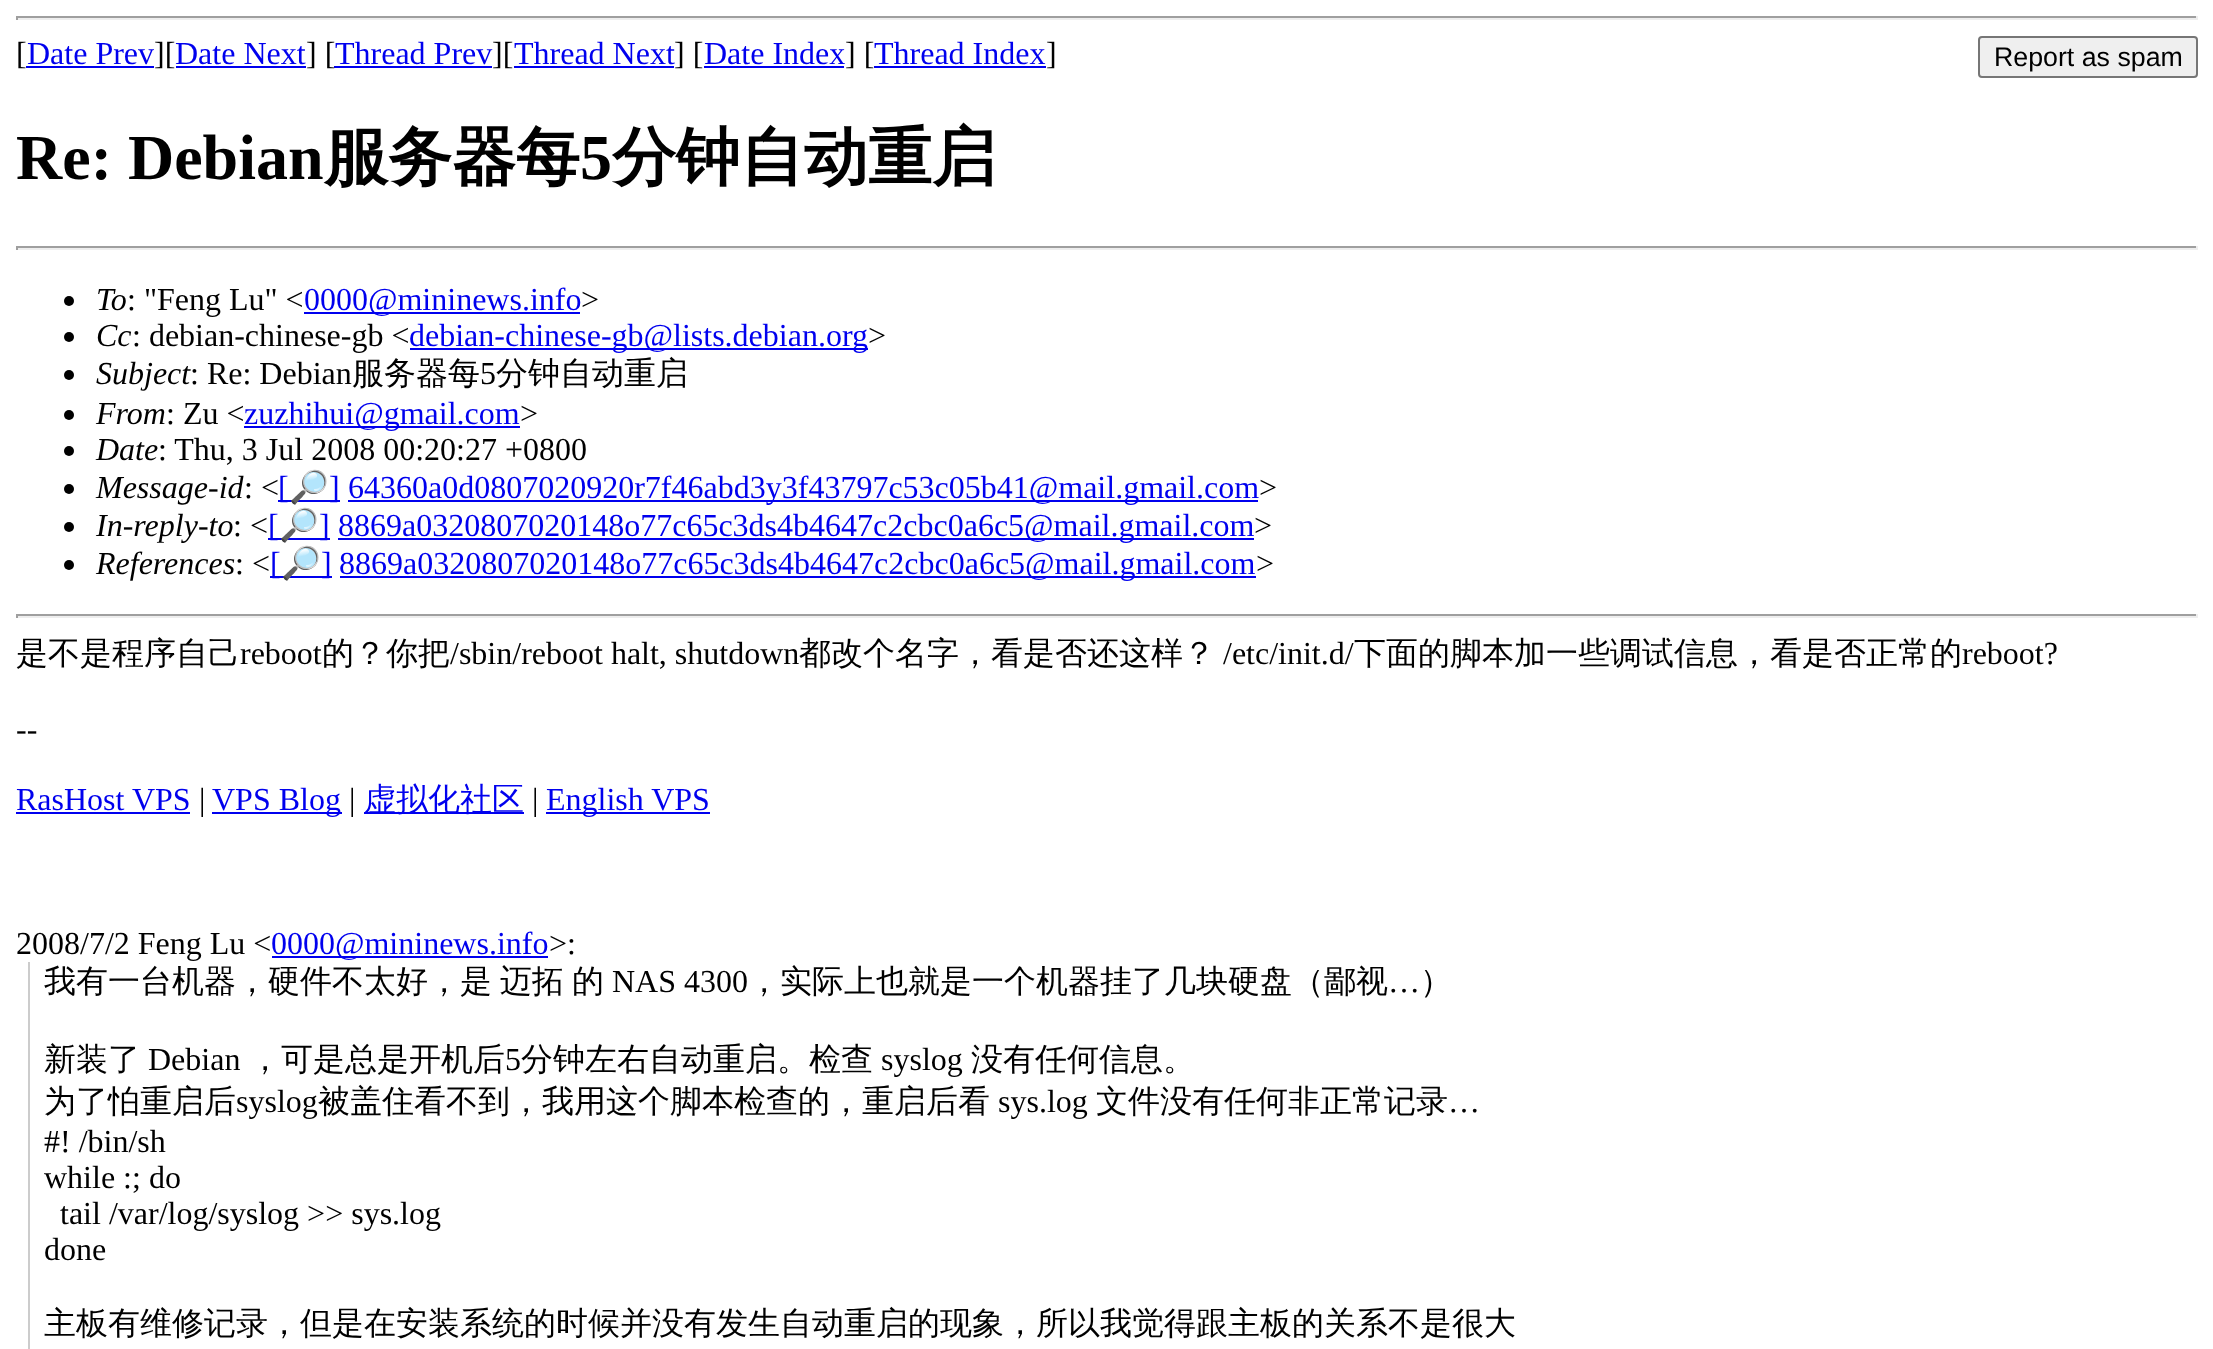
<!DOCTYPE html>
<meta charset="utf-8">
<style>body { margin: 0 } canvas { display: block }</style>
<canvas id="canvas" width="2213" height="1349"></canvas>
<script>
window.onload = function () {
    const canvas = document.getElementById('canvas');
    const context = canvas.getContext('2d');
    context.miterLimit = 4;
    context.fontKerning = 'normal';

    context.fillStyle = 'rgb(255, 255, 255)';
    context.fillRect(0, 0, 2213, 1349);
    context.fillStyle = 'rgb(159, 159, 159)';
    context.fillRect(16, 16, 2182, 2);
    context.fillStyle = 'rgb(238, 238, 238)';
    context.fillRect(2196, 16, 2, 4);
    context.fillRect(16, 18, 2182, 2);
    context.fillStyle = 'rgb(159, 159, 159)';
    context.fillRect(16, 16, 2, 4);
    context.fillStyle = 'rgb(0, 0, 238)';
    context.fillRect(26, 66, 128, 2);
    context.fillRect(176, 66, 130, 2);
    context.fillRect(334, 66, 158, 2);
    context.fillRect(514, 66, 160, 2);
    context.fillRect(704, 66, 140, 2);
    context.fillRect(874, 66, 172, 2);
    context.fillStyle = 'rgb(239, 239, 239)';
    context.beginPath();
    context.roundRect(1979, 37, 218, 40, 3);
    context.fill();
    context.strokeStyle = 'rgb(118, 118, 118)';
    context.lineWidth = 2;
    context.stroke();
    context.fillStyle = 'rgb(159, 159, 159)';
    context.fillRect(16, 246, 2182, 2);
    context.fillStyle = 'rgb(238, 238, 238)';
    context.fillRect(2196, 246, 2, 4);
    context.fillRect(16, 248, 2182, 2);
    context.fillStyle = 'rgb(159, 159, 159)';
    context.fillRect(16, 246, 2, 4);
    context.fillStyle = 'rgb(0, 0, 0)';
    context.beginPath();
    context.arc(69, 301, 5, 0, 2 * Math.PI);
    context.fill();
    context.fillStyle = 'rgb(0, 0, 238)';
    context.fillRect(304, 312, 276, 2);
    context.fillStyle = 'rgb(0, 0, 0)';
    context.beginPath();
    context.arc(69, 337, 5, 0, 2 * Math.PI);
    context.fill();
    context.fillStyle = 'rgb(0, 0, 238)';
    context.fillRect(410, 348, 458, 2);
    context.fillStyle = 'rgb(0, 0, 0)';
    context.beginPath();
    context.arc(69, 375, 5, 0, 2 * Math.PI);
    context.fill();
    context.beginPath();
    context.arc(69, 415, 5, 0, 2 * Math.PI);
    context.fill();
    context.fillStyle = 'rgb(0, 0, 238)';
    context.fillRect(244, 426, 276, 2);
    context.fillStyle = 'rgb(0, 0, 0)';
    context.beginPath();
    context.arc(69, 451, 5, 0, 2 * Math.PI);
    context.fill();
    context.beginPath();
    context.arc(69, 489, 5, 0, 2 * Math.PI);
    context.fill();
    context.fillStyle = 'rgb(0, 0, 238)';
    context.fillRect(278, 500, 62, 2);
    context.fillRect(348, 500, 910, 2);
    context.fillStyle = 'rgb(0, 0, 0)';
    context.beginPath();
    context.arc(69, 527, 5, 0, 2 * Math.PI);
    context.fill();
    context.fillStyle = 'rgb(0, 0, 238)';
    context.fillRect(268, 538, 62, 2);
    context.fillRect(338, 538, 916, 2);
    context.fillStyle = 'rgb(0, 0, 0)';
    context.beginPath();
    context.arc(69, 565, 5, 0, 2 * Math.PI);
    context.fill();
    context.fillStyle = 'rgb(0, 0, 238)';
    context.fillRect(270, 576, 62, 2);
    context.fillRect(340, 576, 916, 2);
    context.fillStyle = 'rgb(159, 159, 159)';
    context.fillRect(16, 614, 2182, 2);
    context.fillStyle = 'rgb(238, 238, 238)';
    context.fillRect(2196, 614, 2, 4);
    context.fillRect(16, 616, 2182, 2);
    context.fillStyle = 'rgb(159, 159, 159)';
    context.fillRect(16, 614, 2, 4);
    context.fillStyle = 'rgb(0, 0, 238)';
    context.fillRect(16, 812, 174, 2);
    context.fillRect(212, 812, 130, 2);
    context.fillRect(364, 812, 160, 2);
    context.fillRect(546, 812, 164, 2);
    context.fillRect(272, 956, 276, 2);
    context.fillStyle = 'rgb(204, 204, 204)';
    context.fillRect(28, 962, 2, 387);
    context.font = '32px Liberation Serif';
    context.fillStyle = 'rgb(0, 0, 0)';
    context.fillText('[', 16, 64);
    context.fillStyle = 'rgb(0, 0, 238)';
    context.fillText('Date Prev', 27, 64);
    context.fillStyle = 'rgb(0, 0, 0)';
    context.fillText('][', 154, 64);
    context.fillStyle = 'rgb(0, 0, 238)';
    context.fillText('Date Next', 175, 64);
    context.fillStyle = 'rgb(0, 0, 0)';
    context.fillText('] [', 306, 64);
    context.fillStyle = 'rgb(0, 0, 238)';
    context.fillText('Thread Prev', 335, 64);
    context.fillStyle = 'rgb(0, 0, 0)';
    context.fillText('][', 492, 64);
    context.fillStyle = 'rgb(0, 0, 238)';
    context.fillText('Thread Next', 514, 64);
    context.fillStyle = 'rgb(0, 0, 0)';
    context.fillText('] [', 674, 64);
    context.fillStyle = 'rgb(0, 0, 238)';
    context.fillText('Date Index', 704, 64);
    context.fillStyle = 'rgb(0, 0, 0)';
    context.fillText('] [', 845, 64);
    context.fillStyle = 'rgb(0, 0, 238)';
    context.fillText('Thread Index', 874, 64);
    context.fillStyle = 'rgb(0, 0, 0)';
    context.fillText(']', 1046, 64);
    context.font = '26.75px Liberation Sans';
    context.fillText('Report as spam', 1994, 66);
    context.font = 'bold 64px Liberation Serif';
    context.fillText('Re: Debian', 16, 179);
    context.font = 'bold 64px WenQuanYi Zen Hei';
    context.fillText('服务器每', 324, 179);
    context.font = 'bold 64px Liberation Serif';
    context.fillText('5', 580, 179);
    context.font = 'bold 64px WenQuanYi Zen Hei';
    context.fillText('分钟自动重启', 612, 179);
    context.font = 'italic 32px Liberation Serif';
    context.fillText('To', 96, 310);
    context.font = '32px Liberation Serif';
    context.fillText(': "Feng Lu" <', 127, 310);
    context.fillStyle = 'rgb(0, 0, 238)';
    context.fillText('0000@mininews.info', 304, 310);
    context.fillStyle = 'rgb(0, 0, 0)';
    context.fillText('>', 581, 310);
    context.font = 'italic 32px Liberation Serif';
    context.fillText('Cc', 96, 346);
    context.font = '32px Liberation Serif';
    context.fillText(': debian-chinese-gb <', 132, 346);
    context.fillStyle = 'rgb(0, 0, 238)';
    context.fillText('debian-chinese-gb@lists.debian.org', 409, 346);
    context.fillStyle = 'rgb(0, 0, 0)';
    context.fillText('>', 868, 346);
    context.font = 'italic 32px Liberation Serif';
    context.fillText('Subject', 96, 384);
    context.font = '32px Liberation Serif';
    context.fillText(': Re: Debian', 190, 384);
    context.font = '500 32px WenQuanYi Zen Hei';
    context.fillText('服务器每', 352, 384);
    context.font = '32px Liberation Serif';
    context.fillText('5', 480, 384);
    context.font = '500 32px WenQuanYi Zen Hei';
    context.fillText('分钟自动重启', 496, 384);
    context.font = 'italic 32px Liberation Serif';
    context.fillText('From', 96, 424);
    context.font = '32px Liberation Serif';
    context.fillText(': Zu <', 166, 424);
    context.fillStyle = 'rgb(0, 0, 238)';
    context.fillText('zuzhihui@gmail.com', 244, 424);
    context.fillStyle = 'rgb(0, 0, 0)';
    context.fillText('>', 520, 424);
    context.font = 'italic 32px Liberation Serif';
    context.fillText('Date', 96, 460);
    context.font = '32px Liberation Serif';
    context.fillText(': Thu, 3 Jul 2008 00:20:27 +0800', 158, 460);
    context.font = 'italic 32px Liberation Serif';
    context.fillText('Message-id', 96, 498);
    context.font = '32px Liberation Serif';
    context.fillText(': <', 244, 498);
    context.fillStyle = 'rgb(0, 0, 238)';
    context.fillText('[', 278, 498);
    context.font = '32px Noto Color Emoji';
    context.fillText('🔎', 289, 498);
    context.font = '32px Liberation Serif';
    context.fillText(']', 329, 498);
    context.fillText('64360a0d0807020920r7f46abd3y3f43797c53c05b41@mail.gmail.com', 348, 498);
    context.fillStyle = 'rgb(0, 0, 0)';
    context.fillText('>', 1259, 498);
    context.font = 'italic 32px Liberation Serif';
    context.fillText('In-reply-to', 96, 536);
    context.font = '32px Liberation Serif';
    context.fillText(': <', 233, 536);
    context.fillStyle = 'rgb(0, 0, 238)';
    context.fillText('[', 268, 536);
    context.font = '32px Noto Color Emoji';
    context.fillText('🔎', 279, 536);
    context.font = '32px Liberation Serif';
    context.fillText(']', 319, 536);
    context.fillText('8869a0320807020148o77c65c3ds4b4647c2cbc0a6c5@mail.gmail.com', 338, 536);
    context.fillStyle = 'rgb(0, 0, 0)';
    context.fillText('>', 1254, 536);
    context.font = 'italic 32px Liberation Serif';
    context.fillText('References', 96, 574);
    context.font = '32px Liberation Serif';
    context.fillText(': <', 235, 574);
    context.fillStyle = 'rgb(0, 0, 238)';
    context.fillText('[', 270, 574);
    context.font = '32px Noto Color Emoji';
    context.fillText('🔎', 281, 574);
    context.font = '32px Liberation Serif';
    context.fillText(']', 321, 574);
    context.fillText('8869a0320807020148o77c65c3ds4b4647c2cbc0a6c5@mail.gmail.com', 339, 574);
    context.fillStyle = 'rgb(0, 0, 0)';
    context.fillText('>', 1256, 574);
    context.font = '500 32px WenQuanYi Zen Hei';
    context.fillText('是不是程序自己', 16, 664);
    context.font = '32px Liberation Serif';
    context.fillText('reboot', 240, 664);
    context.font = '500 32px WenQuanYi Zen Hei';
    context.fillText('的？你把', 322, 664);
    context.font = '32px Liberation Serif';
    context.fillText('/sbin/reboot halt, shutdown', 450, 664);
    context.font = '500 32px WenQuanYi Zen Hei';
    context.fillText('都改个名字，看是否还这样？', 799, 664);
    context.font = '32px Liberation Serif';
    context.fillText('/etc/init.d/', 1223, 664);
    context.font = '500 32px WenQuanYi Zen Hei';
    context.fillText('下面的脚本加一些调试信息，看是否正常的', 1354, 664);
    context.font = '32px Liberation Serif';
    context.fillText('reboot?', 1962, 664);
    context.fillText('--', 16, 740);
    context.fillStyle = 'rgb(0, 0, 238)';
    context.fillText('RasHost VPS', 16, 810);
    context.fillStyle = 'rgb(0, 0, 0)';
    context.fillText('|', 199, 810);
    context.fillStyle = 'rgb(0, 0, 238)';
    context.fillText('VPS Blog', 212, 810);
    context.fillStyle = 'rgb(0, 0, 0)';
    context.fillText('|', 349, 810);
    context.font = '500 32px WenQuanYi Zen Hei';
    context.fillStyle = 'rgb(0, 0, 238)';
    context.fillText('虚拟化社区', 364, 810);
    context.font = '32px Liberation Serif';
    context.fillStyle = 'rgb(0, 0, 0)';
    context.fillText('|', 532, 810);
    context.fillStyle = 'rgb(0, 0, 238)';
    context.fillText('English VPS', 546, 810);
    context.fillStyle = 'rgb(0, 0, 0)';
    context.fillText('2008/7/2 Feng Lu <', 16, 954);
    context.fillStyle = 'rgb(0, 0, 238)';
    context.fillText('0000@mininews.info', 271, 954);
    context.fillStyle = 'rgb(0, 0, 0)';
    context.fillText('>:', 549, 954);
    context.font = '500 32px WenQuanYi Zen Hei';
    context.fillText('我有一台机器，硬件不太好，是', 44, 992);
    context.fillText('迈拓', 500, 992);
    context.fillText('的', 572, 992);
    context.font = '32px Liberation Serif';
    context.fillText('NAS 4300', 612, 992);
    context.font = '500 32px WenQuanYi Zen Hei';
    context.fillText('，实际上也就是一个机器挂了几块硬盘（鄙视', 748, 992);
    context.font = '32px Liberation Serif';
    context.fillText('…', 1388, 992);
    context.font = '500 32px WenQuanYi Zen Hei';
    context.fillText('）', 1420, 992);
    context.fillText('新装了', 44, 1070);
    context.font = '32px Liberation Serif';
    context.fillText('Debian', 148, 1070);
    context.font = '500 32px WenQuanYi Zen Hei';
    context.fillText('，可是总是开机后', 249, 1070);
    context.font = '32px Liberation Serif';
    context.fillText('5', 505, 1070);
    context.font = '500 32px WenQuanYi Zen Hei';
    context.fillText('分钟左右自动重启。检查', 521, 1070);
    context.font = '32px Liberation Serif';
    context.fillText('syslog', 881, 1070);
    context.font = '500 32px WenQuanYi Zen Hei';
    context.fillText('没有任何信息。', 971, 1070);
    context.fillText('为了怕重启后', 44, 1112);
    context.font = '32px Liberation Serif';
    context.fillText('syslog', 236, 1112);
    context.font = '500 32px WenQuanYi Zen Hei';
    context.fillText('被盖住看不到，我用这个脚本检查的，重启后看', 318, 1112);
    context.font = '32px Liberation Serif';
    context.fillText('sys.log', 998, 1112);
    context.font = '500 32px WenQuanYi Zen Hei';
    context.fillText('文件没有任何非正常记录', 1096, 1112);
    context.font = '32px Liberation Serif';
    context.fillText('…', 1448, 1112);
    context.fillText('#! /bin/sh', 44, 1152);
    context.fillText('while :; do', 44, 1188);
    context.fillText('tail /var/log/syslog >> sys.log', 60, 1224);
    context.fillText('done', 44, 1260);
    context.font = '500 32px WenQuanYi Zen Hei';
    context.fillText('主板有维修记录，但是在安装系统的时候并没有发生自动重启的现象，所以我觉得跟主板的关系不是很大', 44, 1334);
};
</script>
